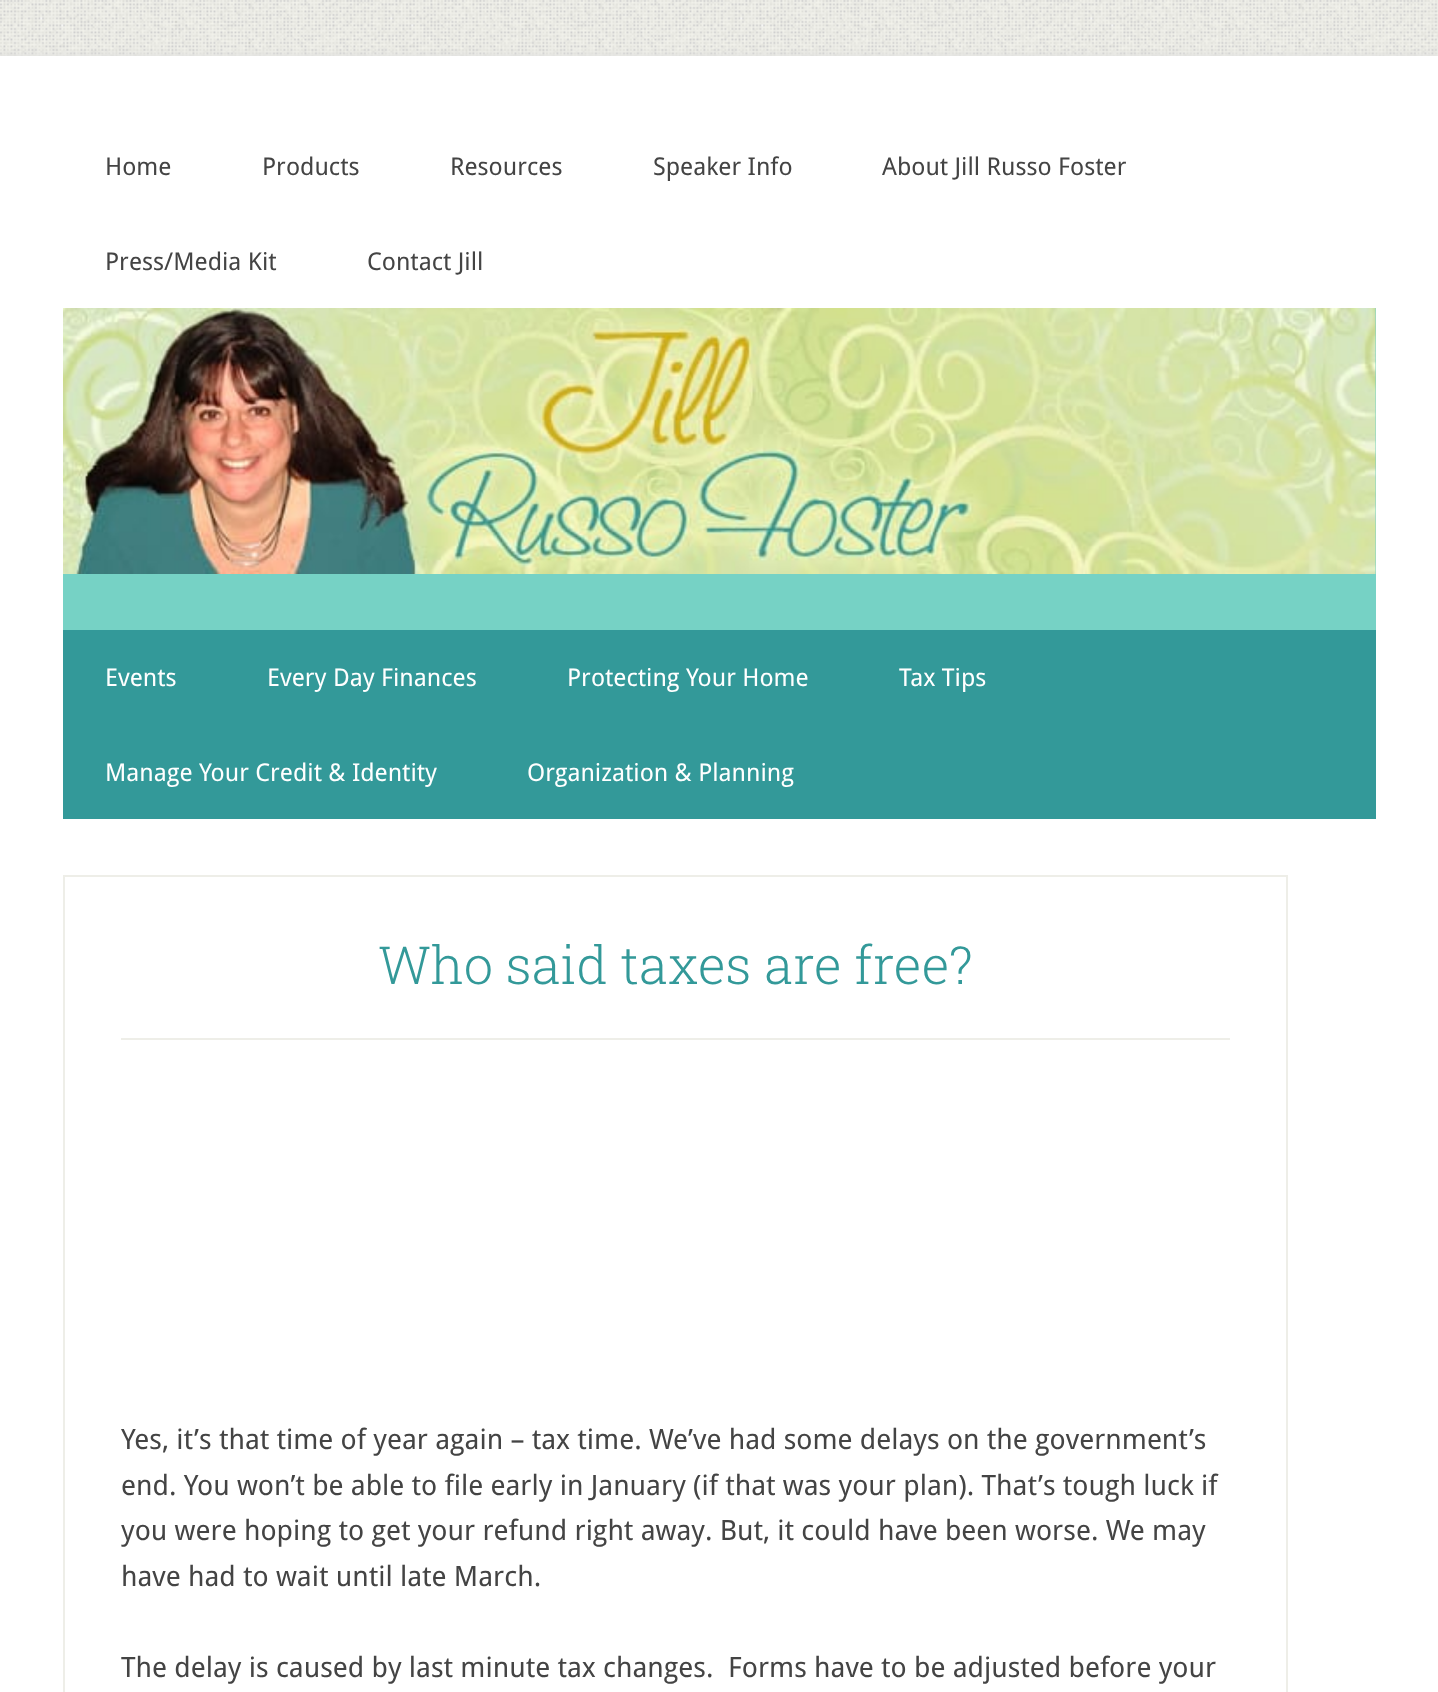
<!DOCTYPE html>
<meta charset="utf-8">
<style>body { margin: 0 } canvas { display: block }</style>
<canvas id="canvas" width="1438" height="1692"></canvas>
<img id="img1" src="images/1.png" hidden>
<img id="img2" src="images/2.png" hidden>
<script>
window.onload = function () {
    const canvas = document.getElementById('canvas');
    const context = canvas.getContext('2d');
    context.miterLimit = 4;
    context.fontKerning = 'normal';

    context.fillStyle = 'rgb(255, 255, 255)';
    context.fillRect(0, 0, 1438, 1692);
    context.drawImage(document.getElementById('img1'), 0, 0, 1438, 56);
    context.fillStyle = 'rgb(221, 221, 221)';
    context.filter = 'blur(4.5px)';
    context.beginPath();
    context.rect(0, 56, 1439, 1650);
    context.fill();
    context.filter = 'none';
    context.fillStyle = 'rgb(255, 255, 255)';
    context.fillRect(0, 56, 1438, 1636);
    context.fillStyle = 'rgb(118, 210, 197)';
    context.fillRect(63, 308, 1313, 322);
    context.drawImage(document.getElementById('img2'), 63, 308, 1313, 266);
    context.fillStyle = 'rgb(51, 153, 153)';
    context.fillRect(63, 630, 1313, 189);
    context.strokeStyle = 'rgb(238, 238, 232)';
    context.lineWidth = 2;
    context.strokeRect(64, 876, 1223, 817);
    context.fillStyle = 'rgb(238, 238, 232)';
    context.fillRect(121, 1038, 1109, 2);
    context.font = '24.5px Droid Sans';
    context.fillStyle = 'rgb(68, 68, 68)';
    context.fillText('Home', 105, 175);
    context.fillText('Products', 262, 175);
    context.fillText('Resources', 450, 175);
    context.fillText('Speaker Info', 653, 175);
    context.fillText('About Jill Russo Foster', 882, 175);
    context.fillText('Press/Media Kit', 105, 270);
    context.fillText('Contact Jill', 367, 270);
    context.fillStyle = 'rgb(255, 255, 255)';
    context.fillText('Events', 105, 686);
    context.fillText('Every Day Finances', 267, 686);
    context.fillText('Protecting Your Home', 567, 686);
    context.fillText('Tax Tips', 899, 686);
    context.fillText('Manage Your Credit & Identity', 105, 781);
    context.fillText('Organization & Planning', 527, 781);
    context.font = '300 52.5px Roboto Slab';
    context.fillStyle = 'rgb(51, 153, 153)';
    context.fillText('Who said taxes are free?', 378, 984);
    context.font = '28px Droid Sans';
    context.fillStyle = 'rgb(68, 68, 68)';
    context.fillText('Yes, it’s that time of year again – tax time. We’ve had some delays on the government’s', 121, 1449);
    context.fillText('end. You won’t be able to file early in January (if that was your plan). That’s tough luck if', 121, 1495);
    context.fillText('you were hoping to get your refund right away. But, it could have been worse. We may', 121, 1540);
    context.fillText('have had to wait until late March.', 121, 1586);
    context.fillText('The delay is caused by last minute tax changes.  Forms have to be adjusted before your', 121, 1677);
};
</script>
